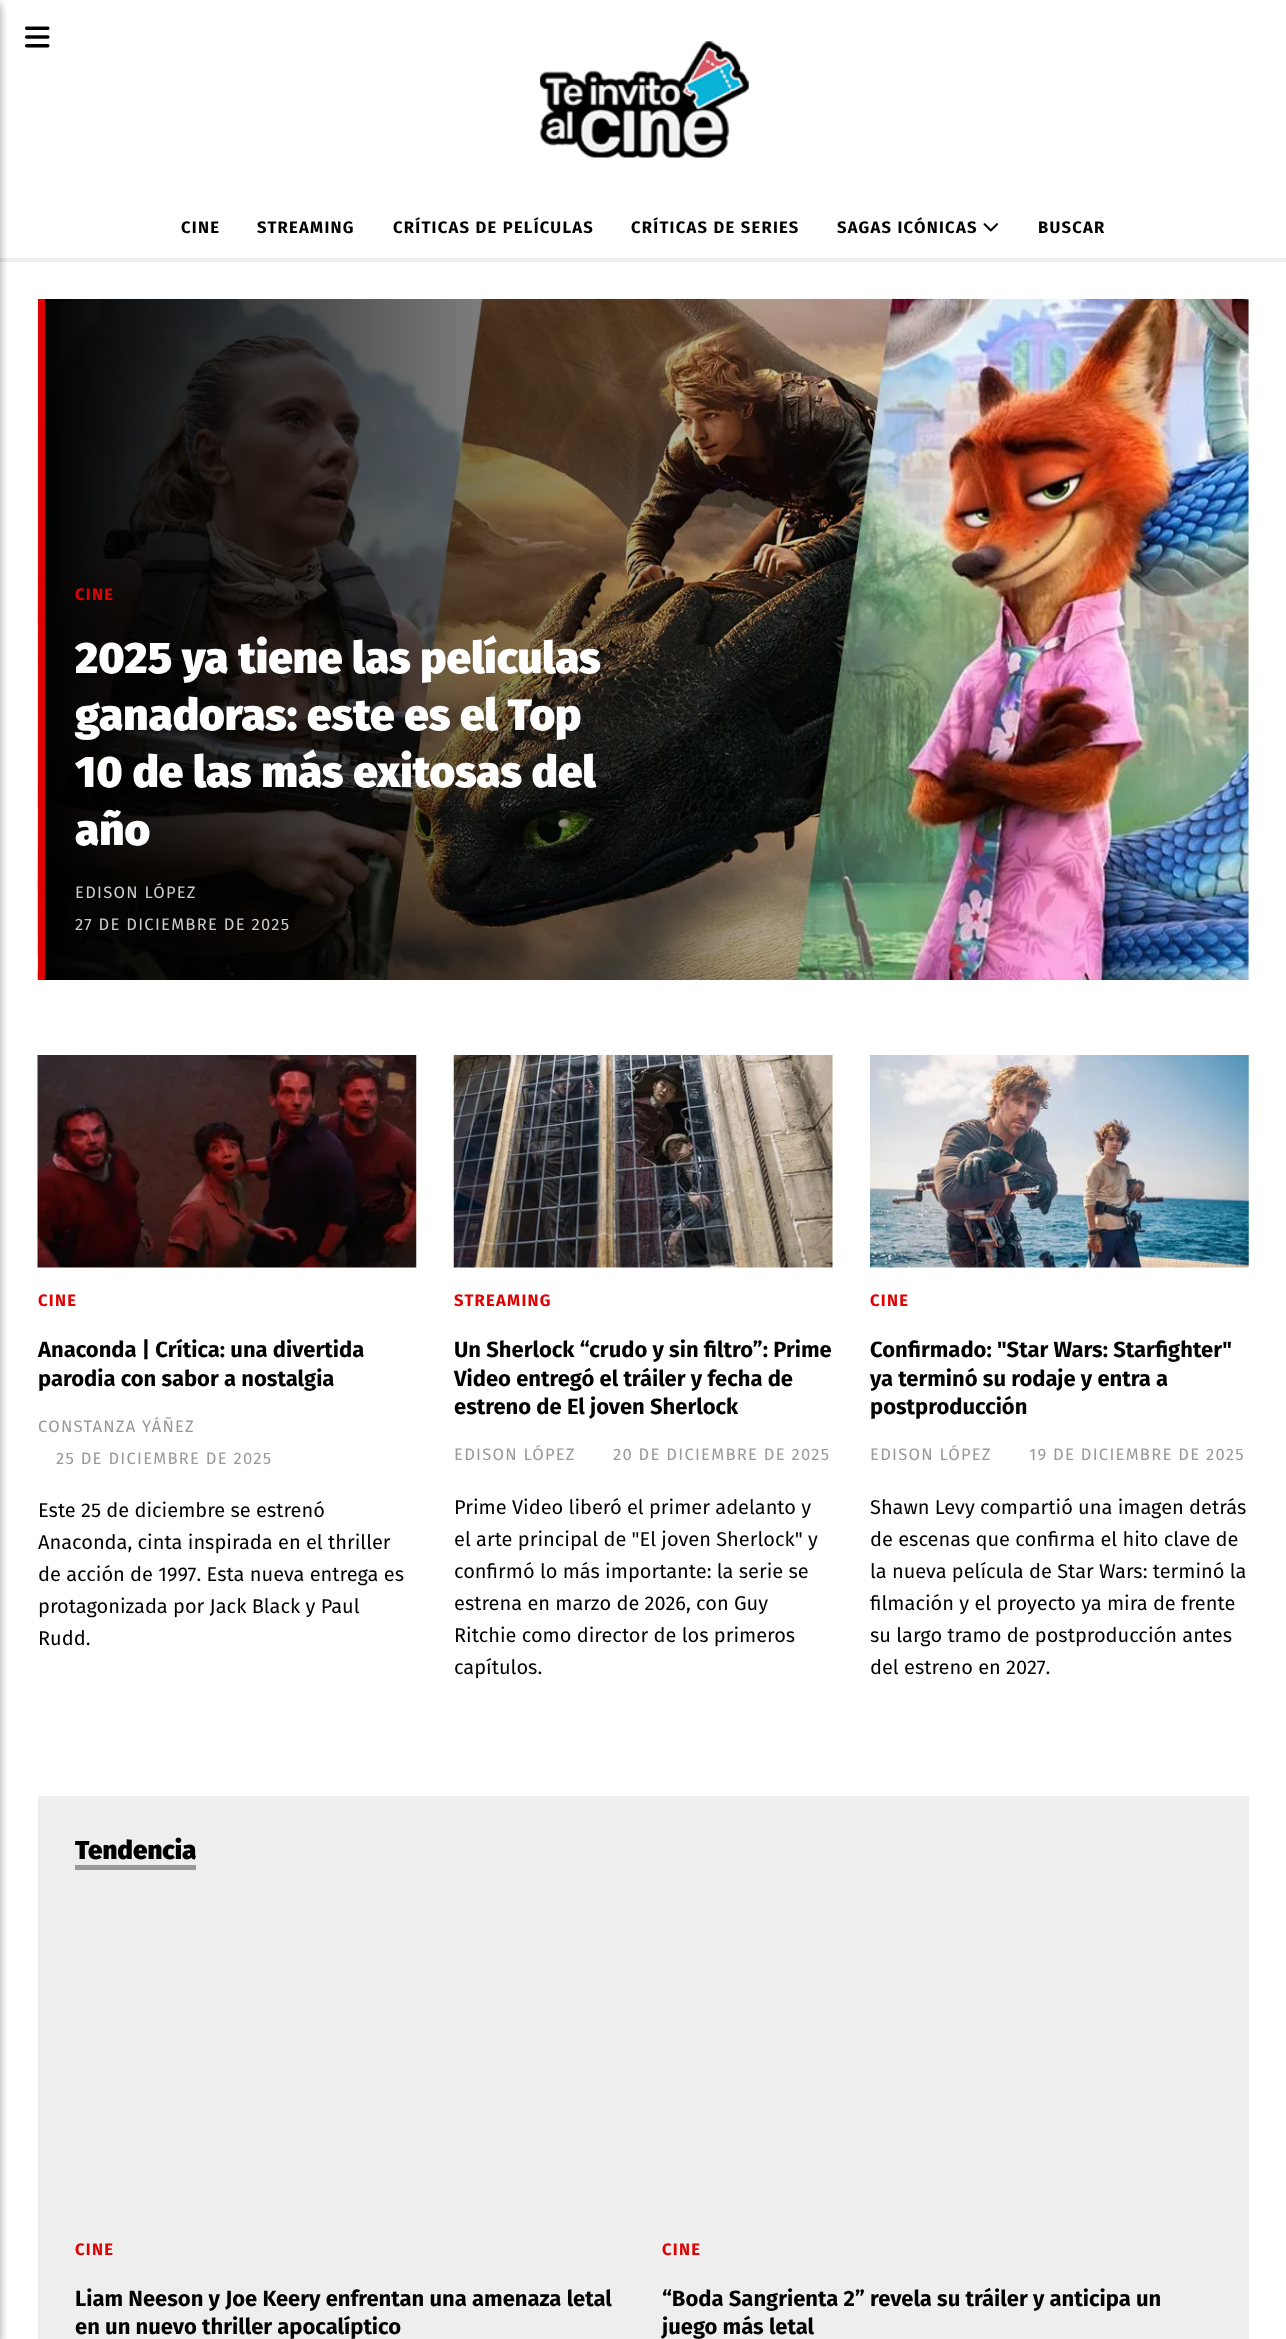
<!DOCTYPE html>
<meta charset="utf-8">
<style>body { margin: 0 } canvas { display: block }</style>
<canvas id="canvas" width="1286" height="2339"></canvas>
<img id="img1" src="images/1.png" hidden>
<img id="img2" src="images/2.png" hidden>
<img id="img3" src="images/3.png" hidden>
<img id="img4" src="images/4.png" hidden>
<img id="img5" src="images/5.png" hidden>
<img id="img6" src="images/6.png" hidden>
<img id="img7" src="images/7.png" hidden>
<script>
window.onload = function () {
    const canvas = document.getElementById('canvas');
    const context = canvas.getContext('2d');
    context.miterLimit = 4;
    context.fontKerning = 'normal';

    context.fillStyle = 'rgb(255, 255, 255)';
    context.fillRect(0, 0, 1286, 2339);
    context.fillStyle = 'rgb(238, 238, 238)';
    context.fillRect(0, 258, 1286, 4);
    context.fillStyle = 'rgba(0, 0, 0, 0.23)';
    context.filter = 'blur(4px)';
    context.beginPath();
    context.rect(-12, 4, 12, 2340);
    context.fill();
    context.filter = 'none';
    context.fillStyle = 'rgba(0, 0, 0, 0.16)';
    context.filter = 'blur(4px)';
    context.beginPath();
    context.rect(-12, 4, 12, 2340);
    context.fill();
    context.filter = 'none';
    context.drawImage(document.getElementById('img1'), 25, 26, 25, 22);
    context.drawImage(document.getElementById('img2'), 539, 41, 210, 117);
    context.drawImage(document.getElementById('img3'), 983, 223, 15, 9);
    context.drawImage(document.getElementById('img4'), 37, 298, 1212, 682);
    context.fillStyle = 'rgb(222, 3, 3)';
    context.fillRect(38, 299, 7, 681);
    context.drawImage(document.getElementById('img5'), 37, 1055, 380, 213);
    context.drawImage(document.getElementById('img6'), 453, 1055, 380, 213);
    context.drawImage(document.getElementById('img7'), 870, 1055, 379, 213);
    context.fillStyle = 'rgb(238, 238, 238)';
    context.fillRect(38, 1796, 1211, 543);
    context.fillStyle = 'rgb(153, 153, 153)';
    context.fillRect(75, 1865, 121, 5);
    context.letterSpacing = '1.25px';
    context.font = 'bold 16.6px Fira Sans';
    context.fillStyle = 'rgb(0, 0, 0)';
    context.fillText('CINE', 181, 233);
    context.fillText('STREAMING', 257, 233);
    context.fillText('CRÍTICAS DE PELÍCULAS', 393, 233);
    context.fillText('CRÍTICAS DE SERIES', 631, 233);
    context.fillText('SAGAS ICÓNICAS', 837, 233);
    context.fillText('BUSCAR', 1038, 233);
    context.fillStyle = 'rgb(222, 3, 3)';
    context.fillText('CINE', 75, 600);
    context.letterSpacing = '0px';
    context.font = '900 44px Fira Sans';
    context.fillStyle = 'rgb(255, 255, 255)';
    context.fillText('2025 ya tiene las películas', 75, 673);
    context.fillText('ganadoras: este es el Top', 75, 730);
    context.fillText('10 de las más exitosas del', 75, 787);
    context.fillText('año', 75, 845);
    context.letterSpacing = '1.25px';
    context.font = '16.6px Fira Sans';
    context.fillStyle = 'rgb(204, 204, 204)';
    context.fillText('EDISON LÓPEZ', 75, 898);
    context.fillText('27 DE DICIEMBRE DE 2025', 75, 930);
    context.font = 'bold 16.6px Fira Sans';
    context.fillStyle = 'rgb(222, 3, 3)';
    context.fillText('CINE', 38, 1306);
    context.letterSpacing = '0px';
    context.font = 'bold 22px Fira Sans';
    context.fillStyle = 'rgb(0, 0, 0)';
    context.fillText('Anaconda | Crítica: una divertida', 38, 1357);
    context.fillText('parodia con sabor a nostalgia', 38, 1386);
    context.letterSpacing = '1.25px';
    context.font = '16.6px Fira Sans';
    context.fillStyle = 'rgb(153, 153, 153)';
    context.fillText('CONSTANZA YÁÑEZ', 38, 1432);
    context.fillText('25 DE DICIEMBRE DE 2025', 56, 1464);
    context.letterSpacing = '0px';
    context.font = '20px Fira Sans';
    context.fillStyle = 'rgb(0, 0, 0)';
    context.fillText('Este 25 de diciembre se estrenó', 38, 1517);
    context.fillText('Anaconda, cinta inspirada en el thriller', 38, 1549);
    context.fillText('de acción de 1997. Esta nueva entrega es', 38, 1581);
    context.fillText('protagonizada por Jack Black y Paul', 38, 1613);
    context.fillText('Rudd.', 38, 1645);
    context.letterSpacing = '1.25px';
    context.font = 'bold 16.6px Fira Sans';
    context.fillStyle = 'rgb(222, 3, 3)';
    context.fillText('STREAMING', 454, 1306);
    context.letterSpacing = '0px';
    context.font = 'bold 22px Fira Sans';
    context.fillStyle = 'rgb(0, 0, 0)';
    context.fillText('Un Sherlock “crudo y sin filtro”: Prime', 454, 1357);
    context.fillText('Video entregó el tráiler y fecha de', 454, 1386);
    context.fillText('estreno de El joven Sherlock', 454, 1414);
    context.letterSpacing = '1.25px';
    context.font = '16.6px Fira Sans';
    context.fillStyle = 'rgb(153, 153, 153)';
    context.fillText('EDISON LÓPEZ', 454, 1460);
    context.fillText('20 DE DICIEMBRE DE 2025', 613, 1460);
    context.letterSpacing = '0px';
    context.font = '20px Fira Sans';
    context.fillStyle = 'rgb(0, 0, 0)';
    context.fillText('Prime Video liberó el primer adelanto y', 454, 1514);
    context.fillText('el arte principal de "El joven Sherlock" y', 454, 1546);
    context.fillText('confirmó lo más importante: la serie se', 454, 1578);
    context.fillText('estrena en marzo de 2026, con Guy', 454, 1610);
    context.fillText('Ritchie como director de los primeros', 454, 1642);
    context.fillText('capítulos.', 454, 1674);
    context.letterSpacing = '1.25px';
    context.font = 'bold 16.6px Fira Sans';
    context.fillStyle = 'rgb(222, 3, 3)';
    context.fillText('CINE', 870, 1306);
    context.letterSpacing = '0px';
    context.font = 'bold 22px Fira Sans';
    context.fillStyle = 'rgb(0, 0, 0)';
    context.fillText('Confirmado: "Star Wars: Starfighter"', 870, 1357);
    context.fillText('ya terminó su rodaje y entra a', 870, 1386);
    context.fillText('postproducción', 870, 1414);
    context.letterSpacing = '1.25px';
    context.font = '16.6px Fira Sans';
    context.fillStyle = 'rgb(153, 153, 153)';
    context.fillText('EDISON LÓPEZ', 870, 1460);
    context.fillText('19 DE DICIEMBRE DE 2025', 1029, 1460);
    context.letterSpacing = '0px';
    context.font = '20px Fira Sans';
    context.fillStyle = 'rgb(0, 0, 0)';
    context.fillText('Shawn Levy compartió una imagen detrás', 870, 1514);
    context.fillText('de escenas que confirma el hito clave de', 870, 1546);
    context.fillText('la nueva película de Star Wars: terminó la', 870, 1578);
    context.fillText('filmación y el proyecto ya mira de frente', 870, 1610);
    context.fillText('su largo tramo de postproducción antes', 870, 1642);
    context.fillText('del estreno en 2027.', 870, 1674);
    context.font = '900 26px Fira Sans';
    context.fillText('Tendencia', 75, 1859);
    context.letterSpacing = '1.25px';
    context.font = 'bold 16.6px Fira Sans';
    context.fillStyle = 'rgb(222, 3, 3)';
    context.fillText('CINE', 75, 2255);
    context.letterSpacing = '0px';
    context.font = 'bold 22px Fira Sans';
    context.fillStyle = 'rgb(0, 0, 0)';
    context.fillText('Liam Neeson y Joe Keery enfrentan una amenaza letal', 75, 2306);
    context.fillText('en un nuevo thriller apocalíptico', 75, 2334);
    context.letterSpacing = '1.25px';
    context.font = 'bold 16.6px Fira Sans';
    context.fillStyle = 'rgb(222, 3, 3)';
    context.fillText('CINE', 662, 2255);
    context.letterSpacing = '0px';
    context.font = 'bold 22px Fira Sans';
    context.fillStyle = 'rgb(0, 0, 0)';
    context.fillText('“Boda Sangrienta 2” revela su tráiler y anticipa un', 662, 2306);
    context.fillText('juego más letal', 662, 2334);
};
</script>
